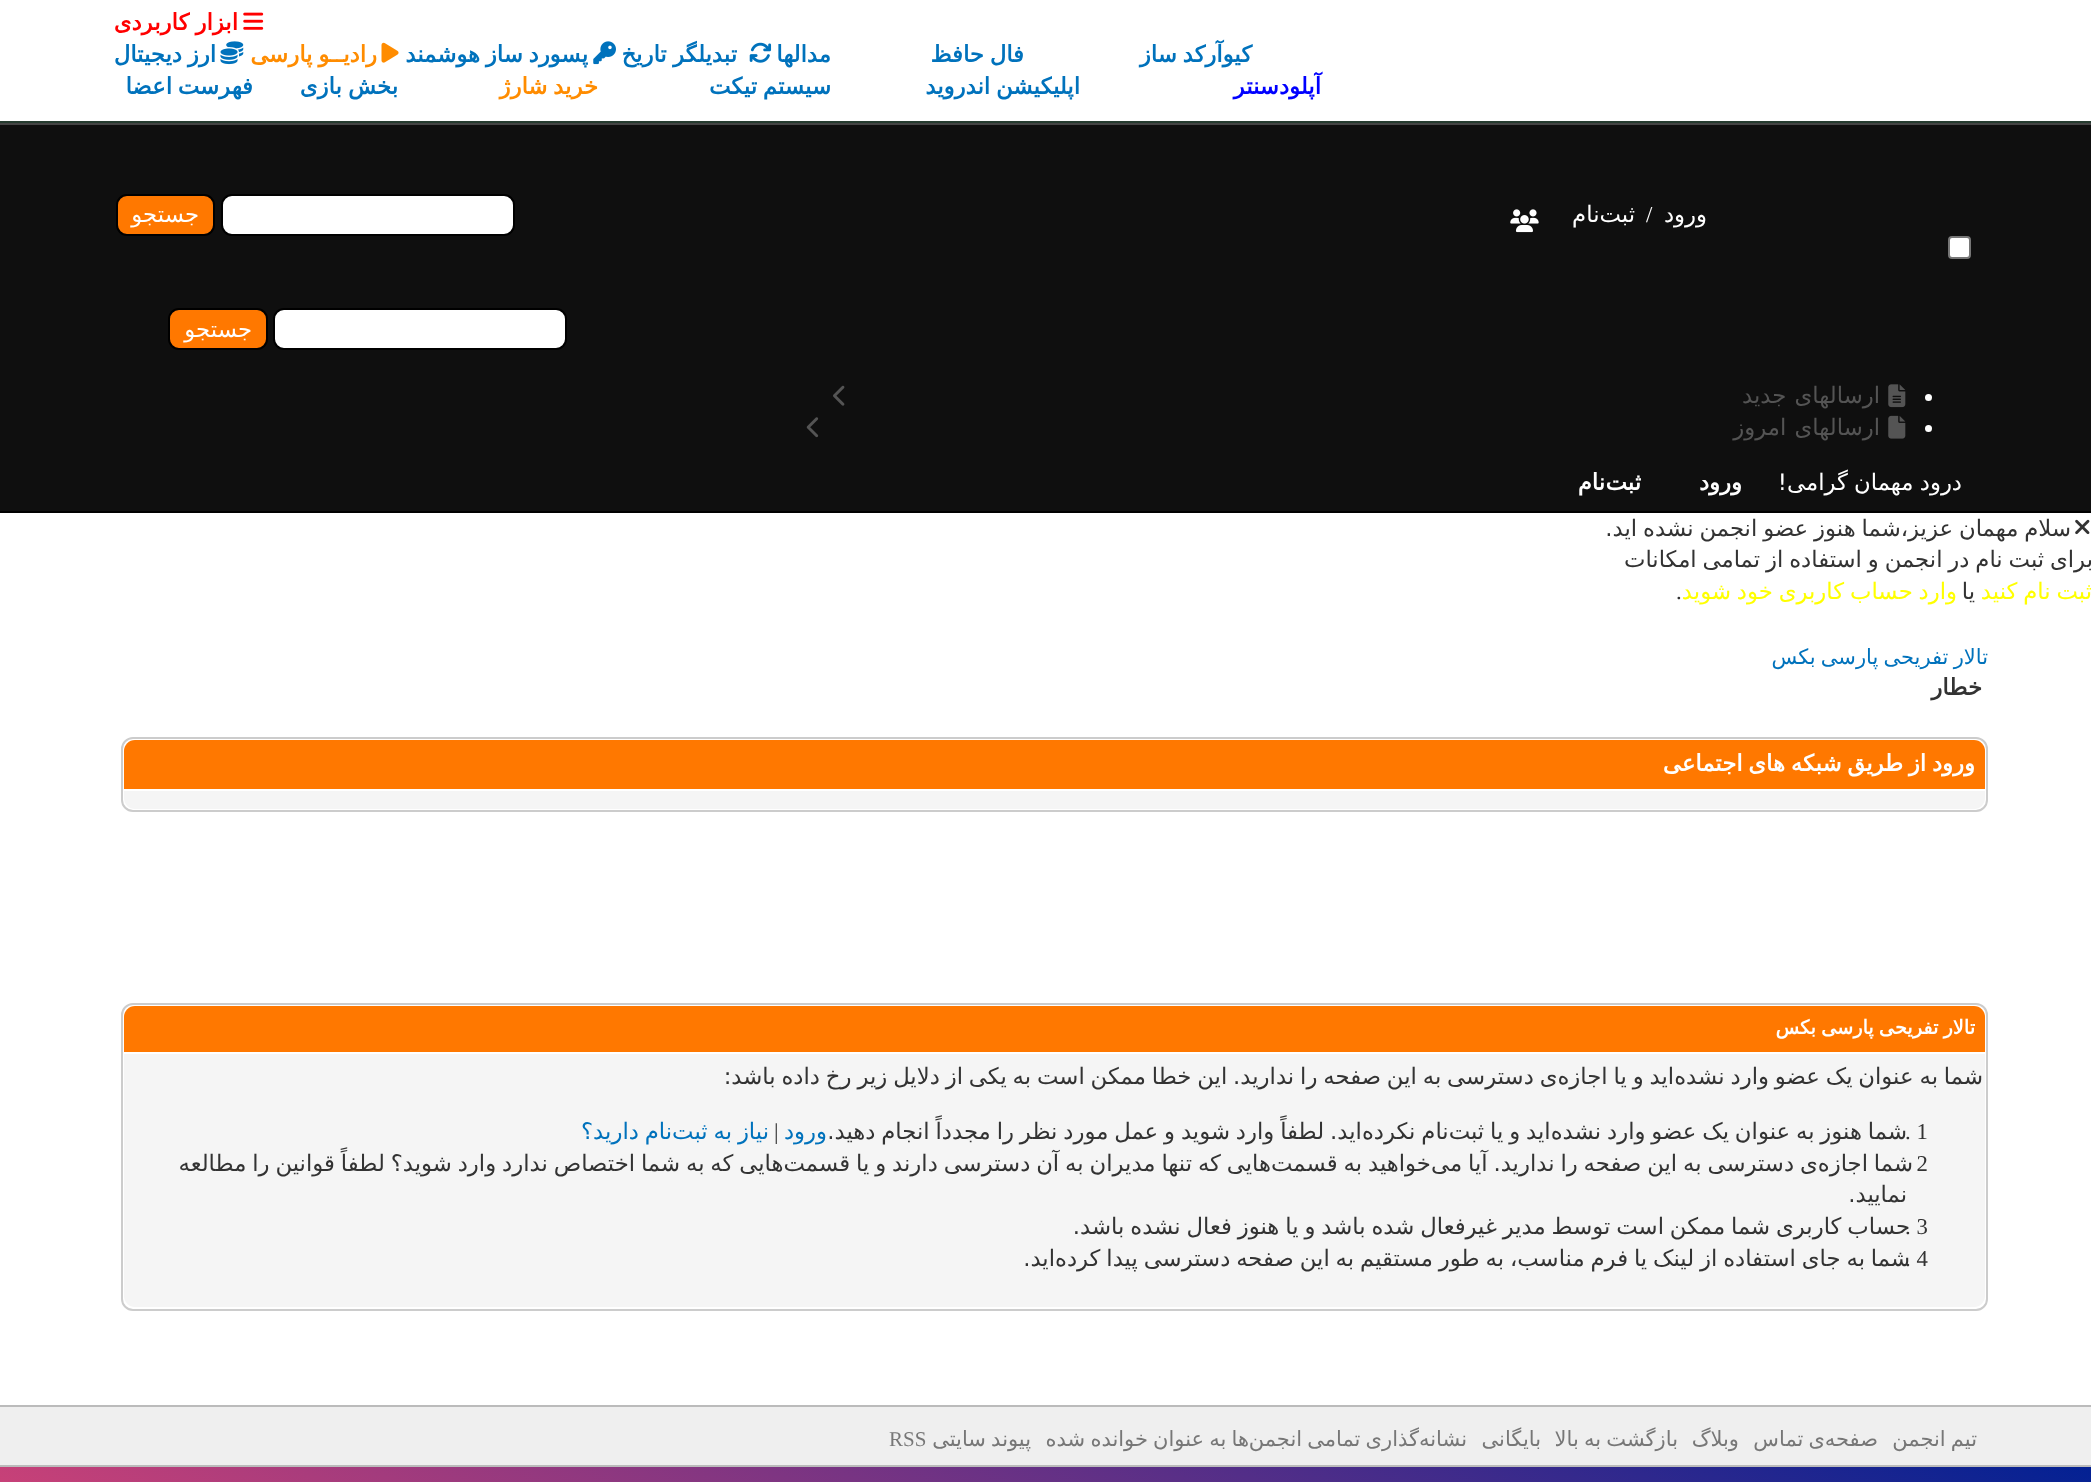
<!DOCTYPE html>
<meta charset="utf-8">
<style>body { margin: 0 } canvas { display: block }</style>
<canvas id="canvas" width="2091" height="1482"></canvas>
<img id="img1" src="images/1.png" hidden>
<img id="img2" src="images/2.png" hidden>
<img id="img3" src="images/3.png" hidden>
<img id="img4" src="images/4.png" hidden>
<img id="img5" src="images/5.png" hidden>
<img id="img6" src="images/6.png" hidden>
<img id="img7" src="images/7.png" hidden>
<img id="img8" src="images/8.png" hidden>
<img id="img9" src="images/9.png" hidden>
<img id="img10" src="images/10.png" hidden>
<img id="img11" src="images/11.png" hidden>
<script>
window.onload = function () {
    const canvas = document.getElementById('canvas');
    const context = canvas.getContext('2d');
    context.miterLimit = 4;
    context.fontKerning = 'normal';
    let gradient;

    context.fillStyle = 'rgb(255, 255, 255)';
    context.fillRect(0, 0, 2091, 1482);
    context.fillStyle = 'rgb(38, 60, 48)';
    context.fillRect(0, 121, 2091, 2);
    context.drawImage(document.getElementById('img1'), 243, 12, 21, 18);
    context.drawImage(document.getElementById('img2'), 749, 42, 23, 21);
    context.drawImage(document.getElementById('img3'), 593, 41, 23, 24);
    context.drawImage(document.getElementById('img4'), 381, 42, 18, 21);
    context.drawImage(document.getElementById('img5'), 220, 41, 24, 24);
    context.fillStyle = 'rgb(15, 15, 15)';
    context.fillRect(0, 125, 2091, 386);
    context.fillStyle = 'rgb(68, 68, 68)';
    context.fillRect(0, 123, 2091, 2);
    context.fillStyle = 'rgb(0, 0, 0)';
    context.fillRect(0, 511, 2091, 2);
    context.fillStyle = 'rgb(255, 255, 255)';
    context.beginPath();
    context.roundRect(222, 195, 292, 40, 10);
    context.fill();
    context.strokeStyle = 'rgb(0, 0, 0)';
    context.lineWidth = 2;
    context.stroke();
    context.fillStyle = 'rgb(255, 120, 0)';
    context.beginPath();
    context.roundRect(117, 195, 97, 40, 10);
    context.fill();
    context.stroke();
    context.fillStyle = 'rgb(255, 255, 255)';
    context.beginPath();
    context.roundRect(1949, 237, 21, 21, 3);
    context.fill();
    context.strokeStyle = 'rgb(118, 118, 118)';
    context.stroke();
    context.drawImage(document.getElementById('img6'), 1510, 209, 29, 24);
    context.beginPath();
    context.roundRect(274, 309, 292, 40, 10);
    context.fill();
    context.strokeStyle = 'rgb(0, 0, 0)';
    context.stroke();
    context.fillStyle = 'rgb(255, 120, 0)';
    context.beginPath();
    context.roundRect(169, 309, 98, 40, 10);
    context.fill();
    context.stroke();
    context.fillStyle = 'rgb(255, 255, 255)';
    context.beginPath();
    context.arc(1928.5, 397.5, 3.5, 0, 2 * Math.PI);
    context.fill();
    context.drawImage(document.getElementById('img7'), 1888, 384, 18, 24);
    context.drawImage(document.getElementById('img8'), 833, 385, 12, 21);
    context.beginPath();
    context.arc(1928.5, 428.5, 3.5, 0, 2 * Math.PI);
    context.fill();
    context.drawImage(document.getElementById('img9'), 1888, 415, 18, 24);
    context.drawImage(document.getElementById('img10'), 806, 417, 13, 21);
    context.drawImage(document.getElementById('img11'), 2075, 519, 15, 16);
    context.beginPath();
    context.roundRect(122, 738, 1865, 73, 11);
    context.strokeStyle = 'rgb(204, 204, 204)';
    context.stroke();
    context.fillStyle = 'rgb(255, 120, 0)';
    context.beginPath();
    context.roundRect(124, 740, 1861, 49, [11, 11, 0, 0]);
    context.fill();
    context.fillStyle = 'rgb(245, 245, 245)';
    context.beginPath();
    context.roundRect(124, 789, 1861, 20, [0, 0, 11, 11]);
    context.fill();
    context.fillStyle = 'rgb(255, 255, 255)';
    context.fillRect(124, 789, 1861, 2);
    context.beginPath();
    context.roundRect(122, 1004, 1865, 306, 11);
    context.stroke();
    context.fillStyle = 'rgb(255, 120, 0)';
    context.beginPath();
    context.roundRect(124, 1006, 1861, 46, [11, 11, 0, 0]);
    context.fill();
    context.fillStyle = 'rgb(245, 245, 245)';
    context.beginPath();
    context.roundRect(124, 1052, 1861, 255, [0, 0, 11, 11]);
    context.fill();
    context.fillStyle = 'rgb(255, 255, 255)';
    context.fillRect(124, 1052, 1861, 2);
    context.fillStyle = 'rgb(239, 239, 239)';
    context.fillRect(0, 1407, 2091, 58);
    context.fillStyle = 'rgb(187, 187, 187)';
    context.fillRect(0, 1405, 2091, 2);
    context.fillRect(0, 1465, 2091, 2);
    gradient = context.createLinearGradient(1320, 1021, 772, 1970);
    gradient.addColorStop(0, 'rgb(3, 33, 147)');
    gradient.addColorStop(1, 'rgb(206, 66, 119)');
    context.fillStyle = gradient;
    context.fillRect(0, 1467, 2091, 15);
    context.wordSpacing = '-1px';
    context.direction = 'rtl';
    context.font = 'bold 22.75px DejaVu Sans';
    context.fillStyle = 'rgb(255, 0, 0)';
    context.fillText('ابزار کاربردی', 238, 30);
    context.wordSpacing = '-1.5px';
    context.fillStyle = 'rgb(0, 114, 188)';
    context.fillText('کیوآرکد ساز', 1252, 62);
    context.fillText('فال حافظ', 1024, 62);
    context.wordSpacing = '0px';
    context.fillText('مدالها', 831, 62);
    context.wordSpacing = '-1px';
    context.fillText('تبدیلگر تاریخ', 737, 62);
    context.wordSpacing = '-1.5px';
    context.fillText('پسورد ساز هوشمند', 588, 62);
    context.fillStyle = 'rgb(255, 140, 0)';
    context.fillText('رادیــو پارسی', 377, 62);
    context.fillStyle = 'rgb(0, 114, 188)';
    context.fillText('ارز دیجیتال', 216, 62);
    context.wordSpacing = '0px';
    context.fillStyle = 'rgb(0, 0, 255)';
    context.fillText('آپلودسنتر', 1321, 94);
    context.wordSpacing = '-1.5px';
    context.fillStyle = 'rgb(0, 114, 188)';
    context.fillText('اپلیکیشن اندروید', 1080, 94);
    context.fillText('سیستم تیکت', 831, 94);
    context.fillStyle = 'rgb(255, 140, 0)';
    context.fillText('خرید شارژ', 598, 94);
    context.wordSpacing = '-1px';
    context.fillStyle = 'rgb(0, 114, 188)';
    context.fillText('بخش بازی', 398, 94);
    context.wordSpacing = '-1.5px';
    context.fillText('فهرست اعضا', 253, 94);
    context.wordSpacing = '0px';
    context.font = '22.75px DejaVu Sans';
    context.fillStyle = 'rgb(255, 255, 255)';
    context.fillText('ورود', 1707, 222);
    context.direction = 'ltr';
    context.font = '22.75px Liberation Serif';
    context.fillText('/', 1646, 222);
    context.direction = 'rtl';
    context.font = '22.75px DejaVu Sans';
    context.fillText('ثبت‌نام', 1635, 222);
    context.fillText('جستجو', 199, 222);
    context.fillText('جستجو', 252, 337);
    context.wordSpacing = '1px';
    context.fillStyle = 'rgb(84, 84, 84)';
    context.fillText('ارسالهای جدید', 1880, 403);
    context.fillText('ارسالهای امروز', 1880, 435);
    context.wordSpacing = '-1px';
    context.fillStyle = 'rgb(255, 255, 255)';
    context.fillText('درود مهمان گرامی!', 1962, 490);
    context.wordSpacing = '0px';
    context.font = 'bold 22.75px DejaVu Sans';
    context.fillText('ورود', 1742, 490);
    context.fillText('ثبت', 1641, 490);
    context.fillText('نام', 1605, 490);
    context.wordSpacing = '-1.35px';
    context.font = '22.75px DejaVu Sans';
    context.fillStyle = 'rgb(51, 51, 51)';
    context.fillText('سلام مهمان عزیز،شما هنوز عضو انجمن نشده اید.', 2071, 536);
    context.fillText('برای ثبت نام در انجمن و استفاده از تمامی امکانات', 2093, 567);
    context.fillStyle = 'rgb(255, 255, 0)';
    context.fillText('ثبت نام کنید', 2092, 599);
    context.wordSpacing = '0px';
    context.fillStyle = 'rgb(51, 51, 51)';
    context.fillText('یا', 1975, 599);
    context.wordSpacing = '-1.35px';
    context.fillStyle = 'rgb(255, 255, 0)';
    context.fillText('وارد حساب کاربری خود شوید', 1957, 599);
    context.wordSpacing = '0px';
    context.direction = 'ltr';
    context.font = '22.75px Liberation Serif';
    context.fillStyle = 'rgb(51, 51, 51)';
    context.fillText('.', 1676, 599);
    context.wordSpacing = '-1.5px';
    context.direction = 'rtl';
    context.font = '21px DejaVu Sans';
    context.fillStyle = 'rgb(0, 114, 188)';
    context.fillText('تالار تفریحی پارسی بکس', 1988, 664);
    context.wordSpacing = '0px';
    context.font = 'bold 22.75px DejaVu Sans';
    context.fillStyle = 'rgb(51, 51, 51)';
    context.fillText('خطار', 1982, 695);
    context.wordSpacing = '-1.5px';
    context.fillStyle = 'rgb(255, 255, 255)';
    context.fillText('ورود از طریق شبکه های اجتماعی', 1975, 771);
    context.wordSpacing = '-1px';
    context.font = 'bold 19.25px DejaVu Sans';
    context.fillText('تالار تفریحی پارسی بکس', 1975, 1034);
    context.wordSpacing = '-1.35px';
    context.font = '22.75px DejaVu Sans';
    context.fillStyle = 'rgb(51, 51, 51)';
    context.fillText('شما به عنوان یک عضو وارد نشده‌اید و یا اجازه‌ی دسترسی به این صفحه را ندارید. این خطا ممکن است به یکی از دلایل زیر رخ داده باشد:', 1983, 1084);
    context.wordSpacing = '0px';
    context.direction = 'ltr';
    context.font = '22.75px Liberation Serif';
    context.fillText('. 1', 1905, 1139);
    context.wordSpacing = '-1.35px';
    context.direction = 'rtl';
    context.font = '22.75px DejaVu Sans';
    context.fillText('شما هنوز به عنوان یک عضو وارد نشده‌اید و یا ثبت‌نام نکرده‌اید. لطفاً وارد شوید و عمل مورد نظر را مجدداً انجام دهید.', 1907, 1139);
    context.wordSpacing = '0px';
    context.fillStyle = 'rgb(0, 114, 188)';
    context.fillText('ورود', 827, 1139);
    context.direction = 'ltr';
    context.font = '22.75px Liberation Serif';
    context.fillStyle = 'rgb(51, 51, 51)';
    context.fillText('|', 774, 1139);
    context.wordSpacing = '-1.35px';
    context.direction = 'rtl';
    context.font = '22.75px DejaVu Sans';
    context.fillStyle = 'rgb(0, 114, 188)';
    context.fillText('نیاز به ثبت‌نام دارید؟', 769, 1139);
    context.wordSpacing = '0px';
    context.direction = 'ltr';
    context.font = '22.75px Liberation Serif';
    context.fillStyle = 'rgb(51, 51, 51)';
    context.fillText('. 2', 1905, 1171);
    context.wordSpacing = '-1.35px';
    context.direction = 'rtl';
    context.font = '22.75px DejaVu Sans';
    context.fillText('شما اجازه‌ی دسترسی به این صفحه را ندارید. آیا می‌خواهید به قسمت‌هایی که تنها مدیران به آن دسترسی دارند و یا قسمت‌هایی که به شما اختصاص ندارد وارد شوید؟ لطفاً قوانین را مطالعه', 1913, 1171);
    context.wordSpacing = '0px';
    context.fillText('نمایید.', 1907, 1202);
    context.direction = 'ltr';
    context.font = '22.75px Liberation Serif';
    context.fillText('. 3', 1905, 1234);
    context.wordSpacing = '-1.35px';
    context.direction = 'rtl';
    context.font = '22.75px DejaVu Sans';
    context.fillText('حساب کاربری شما ممکن است توسط مدیر غیرفعال شده باشد و یا هنوز فعال نشده باشد.', 1910, 1234);
    context.wordSpacing = '0px';
    context.direction = 'ltr';
    context.font = '22.75px Liberation Serif';
    context.fillText('. 4', 1905, 1266);
    context.wordSpacing = '-1.35px';
    context.direction = 'rtl';
    context.font = '22.75px DejaVu Sans';
    context.fillText('شما به جای استفاده از لینک یا فرم مناسب، به طور مستقیم به این صفحه دسترسی پیدا کرده‌اید.', 1910, 1266);
    context.wordSpacing = '-1.5px';
    context.font = '21px DejaVu Sans';
    context.fillStyle = 'rgb(119, 119, 119)';
    context.fillText('تیم انجمن', 1977, 1446);
    context.wordSpacing = '0px';
    context.fillText('صفحه', 1878, 1446);
    context.wordSpacing = '-1.5px';
    context.fillText('ی تماس', 1825, 1446);
    context.wordSpacing = '0px';
    context.fillText('وبلاگ', 1739, 1446);
    context.wordSpacing = '-1.5px';
    context.fillText('بازگشت به بالا', 1678, 1446);
    context.wordSpacing = '0px';
    context.fillText('بایگانی', 1541, 1446);
    context.fillText('نشانه', 1467, 1446);
    context.wordSpacing = '-1.5px';
    context.fillText('گذاری تمامی انجمن', 1419, 1446);
    context.fillText('ها به عنوان خوانده شده', 1249, 1446);
    context.fillText('پیوند سایتی', 1031, 1446);
    context.wordSpacing = '0px';
    context.direction = 'ltr';
    context.font = '21px Liberation Serif';
    context.fillText('RSS', 889, 1446);
};
</script>
